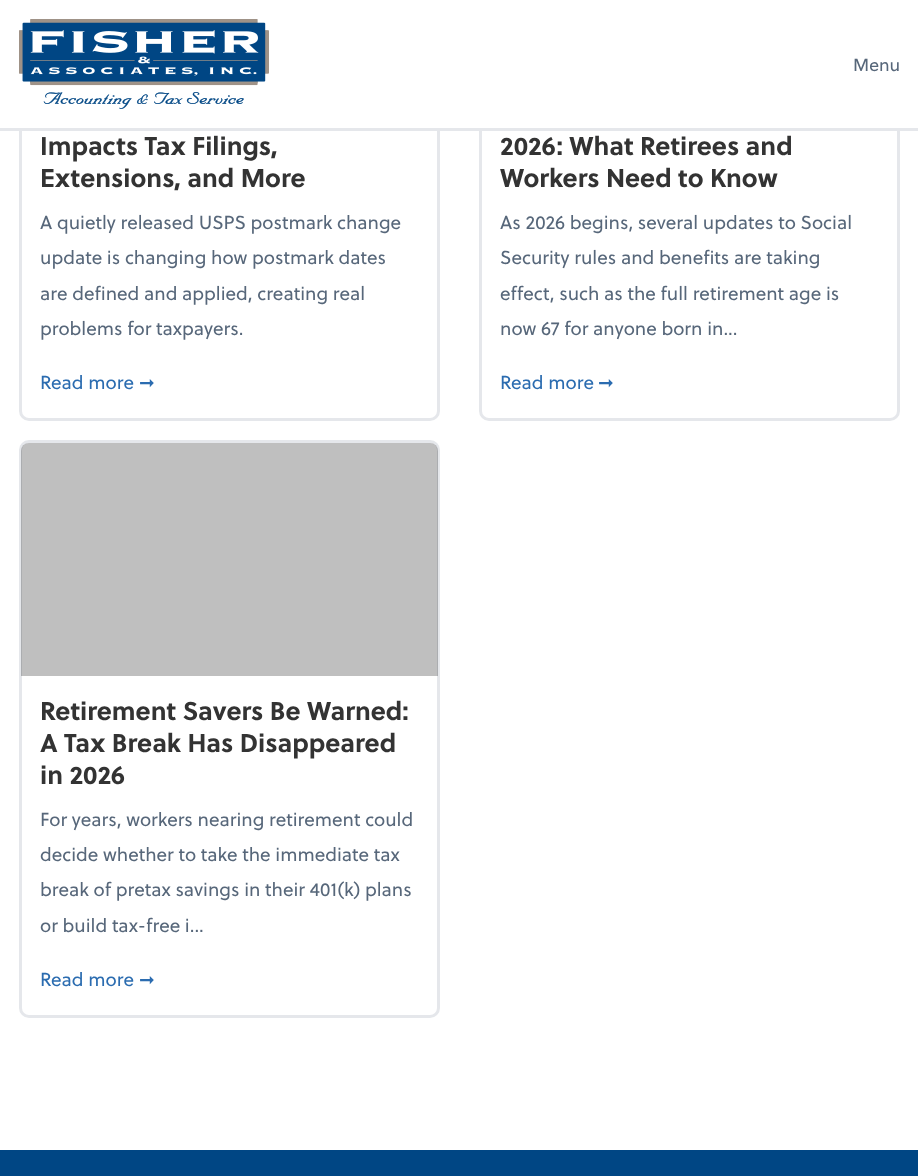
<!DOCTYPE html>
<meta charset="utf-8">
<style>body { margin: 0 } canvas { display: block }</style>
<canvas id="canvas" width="918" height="1176"></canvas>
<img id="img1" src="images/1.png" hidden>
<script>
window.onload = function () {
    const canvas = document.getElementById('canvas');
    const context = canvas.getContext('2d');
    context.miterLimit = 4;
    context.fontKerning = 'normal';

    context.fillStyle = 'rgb(255, 255, 255)';
    context.fillRect(0, 0, 918, 1176);
    context.beginPath();
    context.roundRect(20.5, -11.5, 418, 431, 8.5);
    context.strokeStyle = 'rgb(229, 231, 235)';
    context.lineWidth = 3;
    context.stroke();
    context.beginPath();
    context.roundRect(480.5, -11.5, 418, 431, 8.5);
    context.stroke();
    context.fillRect(19, 0, 881, 128);
    context.fillStyle = 'rgb(229, 231, 235)';
    context.fillRect(0, 128, 918, 3);
    context.drawImage(document.getElementById('img1'), 19, 19, 250, 90);
    context.beginPath();
    context.roundRect(20.5, 441.5, 418, 575, 8.5);
    context.stroke();
    context.fillStyle = 'rgba(0, 0, 0, 0.25)';
    context.beginPath();
    context.roundRect(21, 443, 417, 233, [8, 8, 0, 0]);
    context.fill();
    context.fillStyle = 'rgb(0, 70, 132)';
    context.fillRect(0, 1150, 918, 26);
    context.font = '17.5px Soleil';
    context.fillStyle = 'rgb(87, 103, 122)';
    context.fillText('Menu', 853, 71);
    context.font = 'bold 25.6px Soleil';
    context.fillStyle = 'rgb(51, 51, 51)';
    context.fillText('Impacts Tax Filings,', 40, 155);
    context.fillText('Extensions, and More', 40, 187);
    context.font = '18.8px Soleil';
    context.fillStyle = 'rgb(87, 103, 122)';
    context.fillText('A quietly released USPS postmark change', 40, 229);
    context.fillText('update is changing how postmark dates', 40, 264);
    context.fillText('are defined and applied, creating real', 40, 300);
    context.fillText('problems for taxpayers.', 40, 335);
    context.fillStyle = 'rgb(43, 108, 176)';
    context.fillText('Read more', 40, 389);
    context.font = '18.8px DejaVu Sans';
    context.fillText('➞', 139, 389);
    context.font = 'bold 25.6px Soleil';
    context.fillStyle = 'rgb(51, 51, 51)';
    context.fillText('2026: What Retirees and', 500, 155);
    context.fillText('Workers Need to Know', 500, 187);
    context.font = '18.8px Soleil';
    context.fillStyle = 'rgb(87, 103, 122)';
    context.fillText('As 2026 begins, several updates to Social', 500, 229);
    context.fillText('Security rules and benefits are taking', 500, 264);
    context.fillText('effect, such as the full retirement age is', 500, 300);
    context.fillText('now 67 for anyone born in...', 500, 335);
    context.fillStyle = 'rgb(43, 108, 176)';
    context.fillText('Read more', 500, 389);
    context.font = '18.8px DejaVu Sans';
    context.fillText('➞', 598, 389);
    context.font = 'bold 25.6px Soleil';
    context.fillStyle = 'rgb(51, 51, 51)';
    context.fillText('Retirement Savers Be Warned:', 40, 720);
    context.fillText('A Tax Break Has Disappeared', 40, 752);
    context.fillText('in 2026', 40, 784);
    context.font = '18.8px Soleil';
    context.fillStyle = 'rgb(87, 103, 122)';
    context.fillText('For years, workers nearing retirement could', 40, 826);
    context.fillText('decide whether to take the immediate tax', 40, 861);
    context.fillText('break of pretax savings in their 401(k) plans', 40, 896);
    context.fillText('or build tax-free i...', 40, 932);
    context.fillStyle = 'rgb(43, 108, 176)';
    context.fillText('Read more', 40, 986);
    context.font = '18.8px DejaVu Sans';
    context.fillText('➞', 139, 986);
};
</script>
